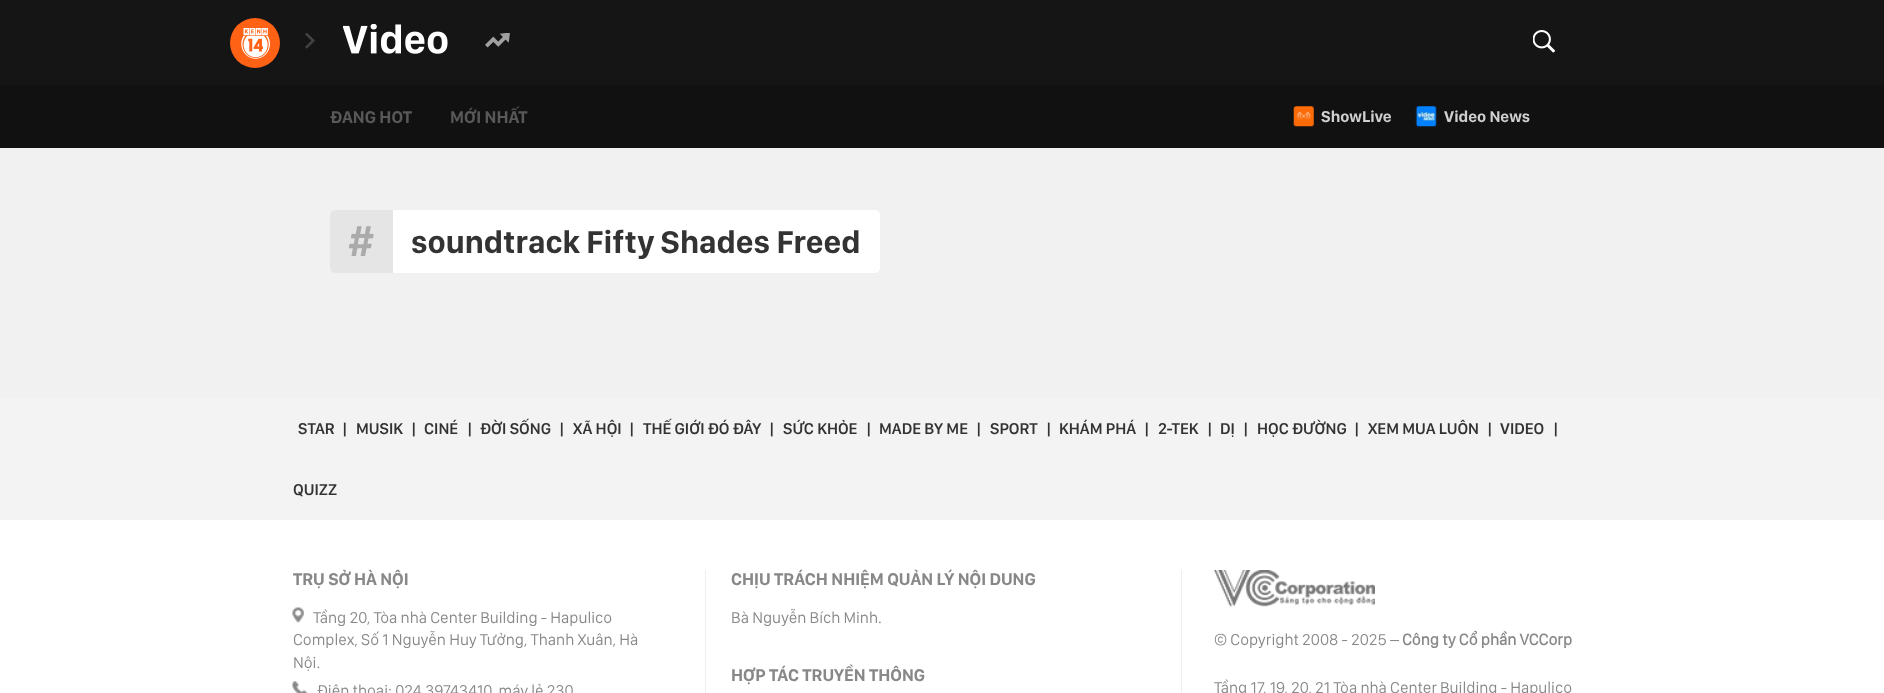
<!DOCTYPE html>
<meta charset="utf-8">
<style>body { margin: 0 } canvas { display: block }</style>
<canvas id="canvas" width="1884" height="693"></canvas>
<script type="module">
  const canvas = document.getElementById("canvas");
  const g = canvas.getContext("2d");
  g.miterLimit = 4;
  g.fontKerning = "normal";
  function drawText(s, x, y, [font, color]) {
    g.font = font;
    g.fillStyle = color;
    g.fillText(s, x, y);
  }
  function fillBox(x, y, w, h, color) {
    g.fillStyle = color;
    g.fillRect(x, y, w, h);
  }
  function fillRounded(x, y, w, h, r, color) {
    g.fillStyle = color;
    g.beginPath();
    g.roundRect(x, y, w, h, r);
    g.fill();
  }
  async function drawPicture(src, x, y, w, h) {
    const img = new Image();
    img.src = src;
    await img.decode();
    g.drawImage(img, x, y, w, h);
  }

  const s1 = ["bold 17.5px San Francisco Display", "#585858"];
  const s2 = ["bold 16.25px San Francisco Display", "#CFCFCF"];
  const s3 = ["bold 32.5px San Francisco Display", "#333333"];
  const s4 = ["600 16.25px San Francisco Display", "#333333"];
  const s5 = ["bold 17.5px San Francisco Display", "#888888"];
  const s6 = ["16.25px San Francisco Display", "#888888"];
  const s7 = ["bold 16.25px 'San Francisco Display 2'", "#888888"];

  fillBox(0, 0, 1884, 693, "#FFFFFF");
  fillBox(0, 0, 1884, 85, "#151515");
  g.fillStyle = "#FF6115";
  g.beginPath();
  g.arc(255, 43, 25, 0, Math.PI * 2);
  g.fill();
  await drawPicture("pic1.png", 241, 28, 29, 31);
  await drawPicture("pic2.png", 305, 33, 10, 16);
  await drawPicture("pic3.png", 343, 24, 105, 30);
  await drawPicture("pic4.png", 485, 33, 25, 15);
  await drawPicture("pic5.png", 1533, 30, 22, 23);
  fillBox(0, 85, 1884, 63, "#111111");
  drawText("ĐANG HOT", 330, 123, s1);
  drawText("MỚI NHẤT", 450, 123, s1);
  await drawPicture("pic6.png", 1293, 106, 21, 21);
  drawText("ShowLive", 1321, 122, s2);
  await drawPicture("pic7.png", 1415, 106, 22, 21);
  drawText("Video News", 1444, 122, s2);
  fillBox(0, 148, 1884, 250, "#F1F1F1");
  fillRounded(330, 210, 550, 63, 5, "#FFFFFF");
  g.fillStyle = "#E5E5E5";
  g.beginPath();
  g.roundRect(330, 210, 63, 63, [5, 0, 0, 5]);
  g.fill();
  await drawPicture("pic8.png", 349, 226, 25, 30);
  drawText("soundtrack Fifty Shades Freed", 411, 253, s3);
  fillBox(0, 398, 1884, 122, "#F3F3F3");
  drawText("|", 411, 434, s4);
  drawText("CINÉ", 424, 434, s4);
  drawText("|", 467, 434, s4);
  drawText("ĐỜI SỐNG", 480, 434, s4);
  drawText("|", 559, 434, s4);
  drawText("XÃ HỘI", 573, 434, s4);
  drawText("|", 629, 434, s4);
  drawText("THẾ GIỚI ĐÓ ĐÂY", 643, 434, s4);
  drawText("|", 769, 434, s4);
  drawText("SỨC KHỎE", 783, 434, s4);
  drawText("|", 1046, 434, s4);
  drawText("KHÁM PHÁ", 1059, 434, s4);
  drawText("|", 1243, 434, s4);
  drawText("HỌC ĐƯỜNG", 1257, 434, s4);
  drawText("|", 1354, 434, s4);
  drawText("XEM MUA LUÔN", 1368, 434, s4);
  drawText("|", 1553, 434, s4);
  drawText("QUIZZ", 293, 495, s4);
  drawText("STAR", 298, 434, s4);
  drawText("|", 342, 434, s4);
  drawText("MUSIK", 356, 434, s4);
  drawText("|", 866, 434, s4);
  drawText("MADE BY ME", 879, 434, s4);
  drawText("|", 976, 434, s4);
  drawText("SPORT", 990, 434, s4);
  drawText("|", 1144, 434, s4);
  drawText("2-TEK", 1158, 434, s4);
  drawText("|", 1207, 434, s4);
  drawText("DỊ", 1220, 434, s4);
  drawText("|", 1487, 434, s4);
  drawText("VIDEO", 1500, 434, s4);
  fillBox(705, 570, 1, 123, "#EEEEEE");
  drawText("TRỤ SỞ HÀ NỘI", 293, 585, s5);
  await drawPicture("pic9.png", 292, 607, 12, 16);
  drawText("Tầng 20, Tòa nhà Center Building - Hapulico", 313, 623, s6);
  drawText("Complex, Số 1 Nguyễn Huy Tưởng, Thanh Xuân, Hà", 293, 645, s6);
  drawText("Nội.", 293, 668, s6);
  await drawPicture("pic10.png", 292, 681, 16, 12);
  drawText("Điện thoại: 024.39743410, máy lẻ 230", 317, 696, s6);
  fillBox(1181, 570, 1, 123, "#EEEEEE");
  drawText("CHỊU TRÁCH NHIỆM QUẢN LÝ NỘI DUNG", 731, 585, s5);
  drawText("Bà Nguyễn Bích Minh.", 731, 623, s6);
  drawText("HỢP TÁC TRUYỀN THÔNG", 731, 681, s5);
  await drawPicture("pic11.png", 1213, 570, 162, 37);
  drawText("© Copyright 2008 - 2025 –", 1214, 645, s6);
  drawText("Công ty Cổ phần VCCorp", 1402, 645, s7);
  drawText("Tầng 17, 19, 20, 21 Tòa nhà Center Building - Hapulico", 1214, 693, s6);
</script>
